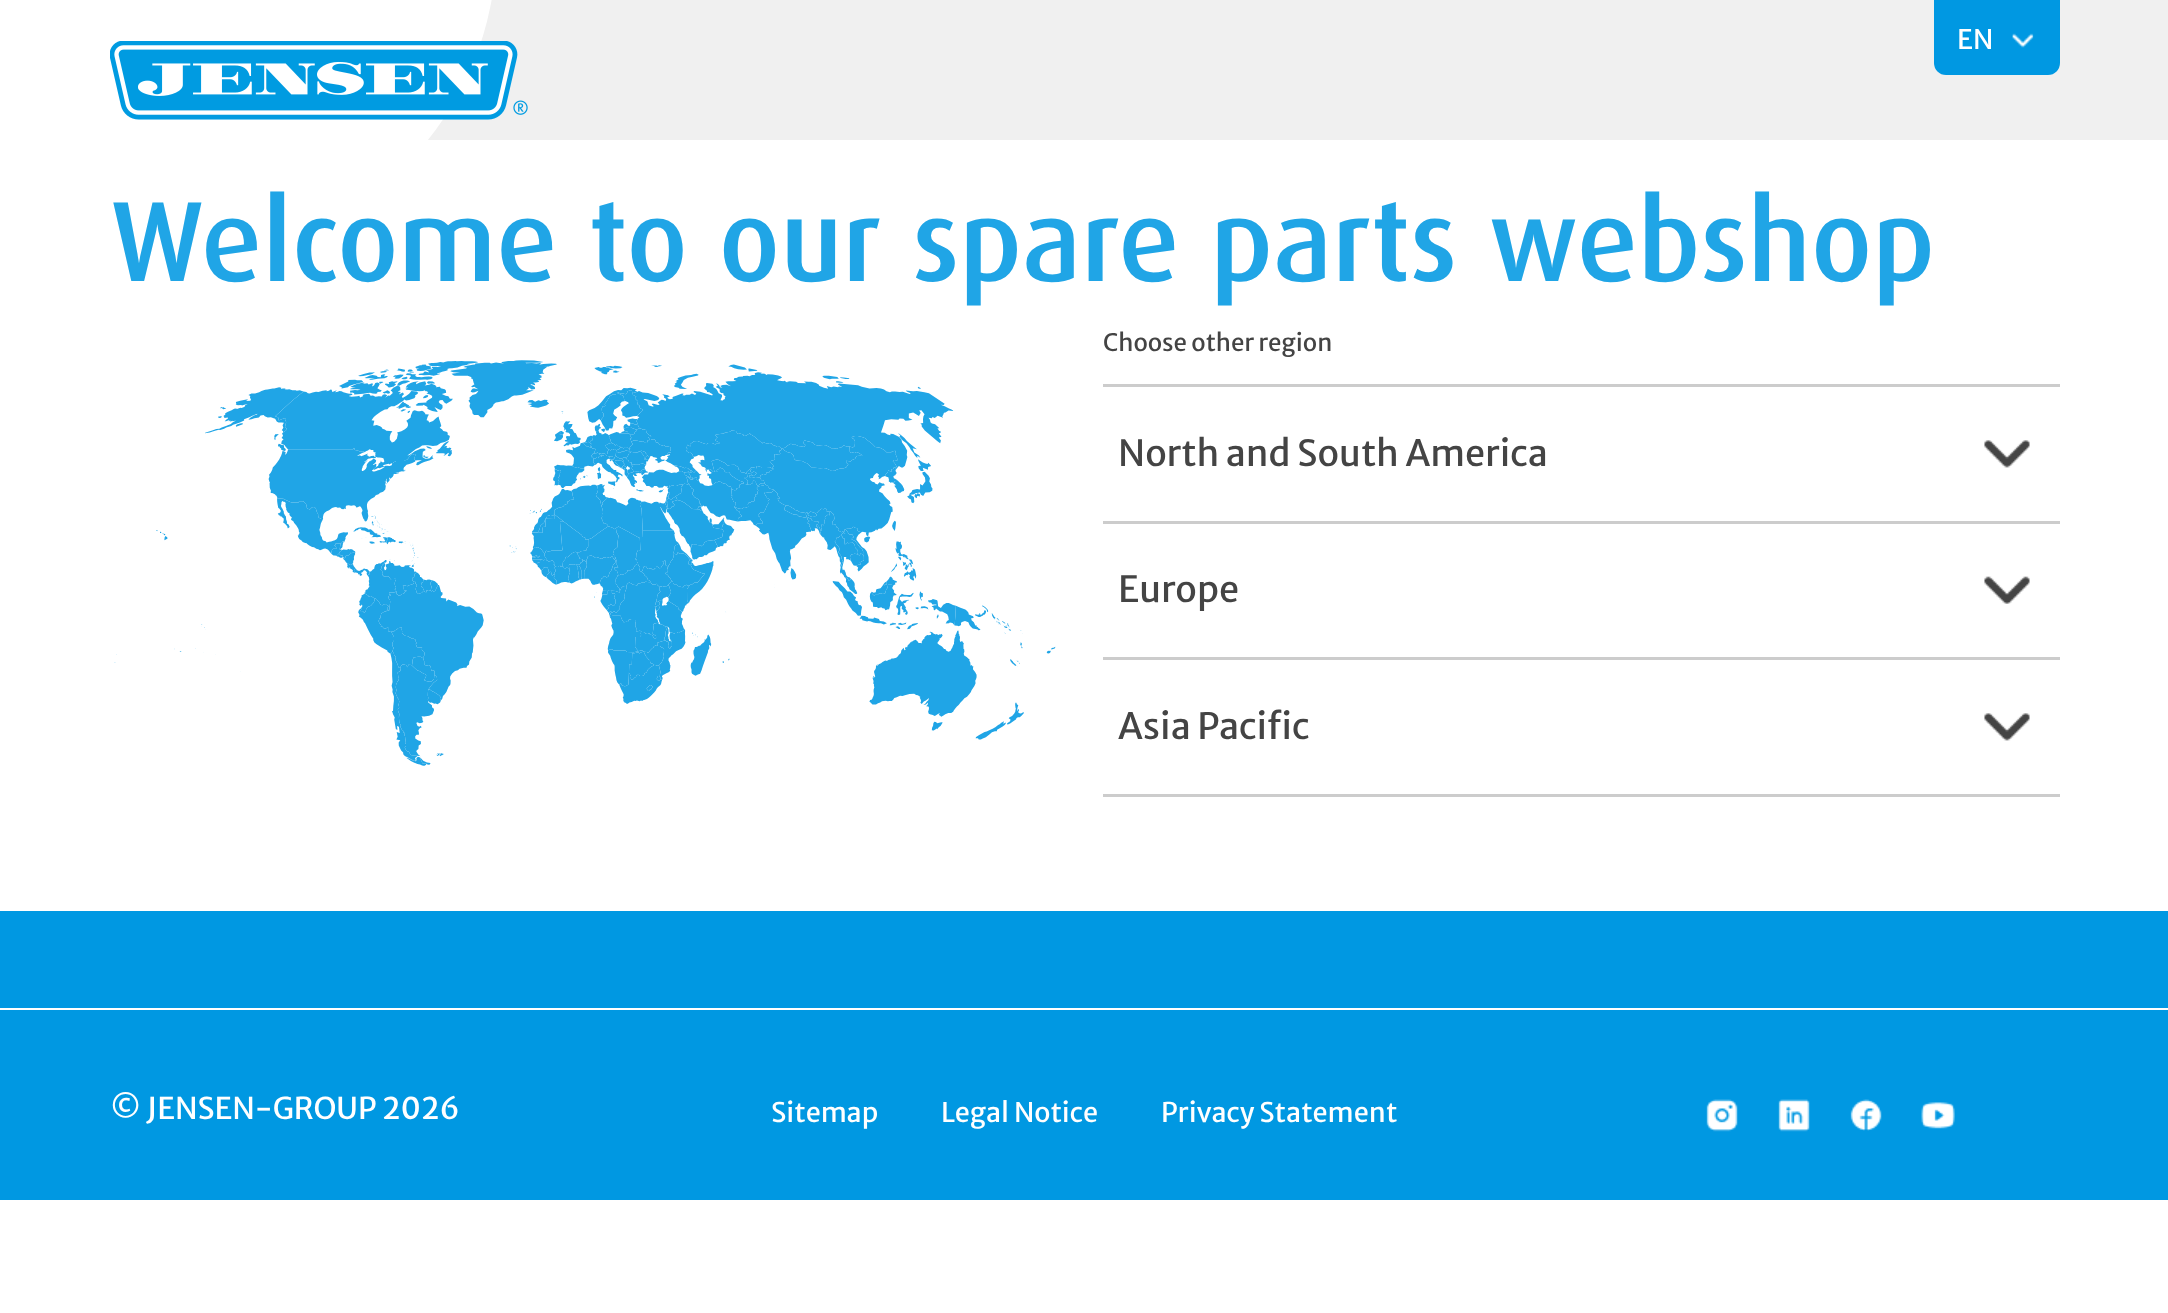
<!DOCTYPE html>
<meta charset="utf-8">
<style>body { margin: 0 } canvas { display: block }</style>
<canvas id="canvas" width="2168" height="1313"></canvas>
<script type="module">
  const canvas = document.getElementById("canvas");
  const g = canvas.getContext("2d");
  g.miterLimit = 4;
  g.fontKerning = "normal";
  function drawText(s, x, y, [font, color]) {
    g.font = font;
    g.fillStyle = color;
    g.fillText(s, x, y);
  }
  function fillBox(x, y, w, h, color) {
    g.fillStyle = color;
    g.fillRect(x, y, w, h);
  }
  async function drawPicture(src, x, y, w, h) {
    const img = new Image();
    img.src = src;
    await img.decode();
    g.drawImage(img, x, y, w, h);
  }

  const s1 = ["27px Merriweather Sans", "#FFFFFF"];
  const s2 = ["500 114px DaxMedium", "#20A5E6"];
  const s3 = ["24px Merriweather Sans", "#444444"];
  const s4 = ["36px Merriweather Sans", "#444444"];
  const s5 = ["30px Merriweather Sans", "#FFFFFF"];

  fillBox(0, 0, 2168, 1313, "#FFFFFF");
  fillBox(427, 0, 1741, 140, "#F0F0F0");
  g.save();
  g.beginPath();
  g.rect(0, 0, 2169, 140);
  g.clip();
  g.fillStyle = "#FFFFFF";
  g.beginPath();
  g.arc(185, -55, 311.5, 0, Math.PI * 2);
  g.fill();
  g.restore();
  g.fillStyle = "#0098E2";
  g.beginPath();
  g.roundRect(1934, 0, 126, 75, [0, 0, 12, 12]);
  g.fill();
  drawText("EN", 1957, 49, s1);
  await drawPicture("pic1.png", 2012, 33, 22, 15);
  await drawPicture("pic2.png", 110, 41, 418, 79);
  drawText("Welcome to our spare parts webshop", 110, 281, s2);
  await drawPicture("pic3.png", 114, 360, 942, 406);
  drawText("Choose other region", 1103, 351, s3);
  fillBox(1103, 384, 957, 3, "#CCCCCC");
  fillBox(1103, 521, 957, 3, "#CCCCCC");
  drawText("North and South America", 1118, 466, s4);
  await drawPicture("pic4.png", 1984, 440, 46, 28);
  fillBox(1103, 657, 957, 3, "#CCCCCC");
  drawText("Europe", 1118, 602, s4);
  await drawPicture("pic5.png", 1984, 576, 46, 28);
  fillBox(1103, 794, 957, 3, "#CCCCCC");
  drawText("Asia Pacific", 1118, 739, s4);
  await drawPicture("pic4.png", 1984, 713, 46, 28);
  fillBox(0, 911, 2168, 289, "#0098E2");
  fillBox(0, 1008, 2168, 2, "#FFFFFF");
  drawText("© JENSEN-GROUP 2026", 110, 1119, s5);
  drawText("Sitemap", 771, 1122, s1);
  drawText("Legal Notice", 941, 1122, s1);
  drawText("Privacy Statement", 1161, 1122, s1);
  await drawPicture("pic6.png", 1706, 1099, 32, 33);
  await drawPicture("pic7.png", 1778, 1099, 32, 33);
  await drawPicture("pic8.png", 1850, 1099, 32, 32);
  await drawPicture("pic9.png", 1921, 1102, 34, 27);
</script>
